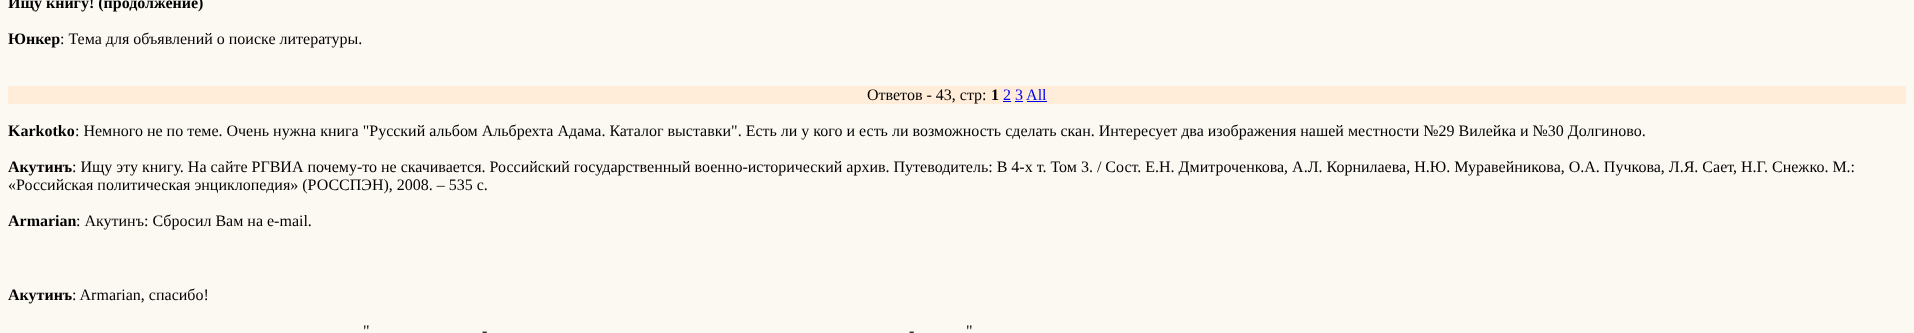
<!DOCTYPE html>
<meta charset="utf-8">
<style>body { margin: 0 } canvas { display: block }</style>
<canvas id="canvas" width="1914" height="333"></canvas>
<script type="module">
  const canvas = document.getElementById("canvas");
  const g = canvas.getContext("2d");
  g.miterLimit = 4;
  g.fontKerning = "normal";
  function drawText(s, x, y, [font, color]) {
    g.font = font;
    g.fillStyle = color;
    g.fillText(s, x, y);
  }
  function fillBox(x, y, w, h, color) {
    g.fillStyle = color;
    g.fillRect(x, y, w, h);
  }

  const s1 = ["bold 16px Liberation Serif", "#000000"];
  const s2 = ["16px Liberation Serif", "#000000"];
  const s3 = ["16px Liberation Serif", "#0000EE"];

  fillBox(0, 0, 1914, 333, "#FCF9F3");
  drawText("Ищу книгу! (продолжение)", 8, 8, s1);
  drawText("Юнкер", 8, 44, s1);
  drawText(": Тема для объявлений о поиске литературы.", 60, 44, s2);
  fillBox(8, 86, 1898, 18, "#FFECD9");
  drawText("Ответов - 43, стр:", 867, 100, s2);
  drawText("1", 991, 100, s1);
  drawText("2 3 All", 1003, 100, s3);
  fillBox(1003, 101, 8, 1, "#0000EE");
  fillBox(1015, 101, 8, 1, "#0000EE");
  fillBox(1027, 101, 20, 1, "#0000EE");
  drawText("Karkotko", 8, 136, s1);
  drawText(": Немного не по теме. Очень нужна книга \"Русский альбом Альбрехта Адама. Каталог выставки\". Есть ли у кого и есть ли возможность сделать скан. Интересует два изображения нашей местности №29 Вилейка и №30 Долгиново.", 75, 136, s2);
  drawText("Акутинъ", 8, 172, s1);
  drawText(": Ищу эту книгу. На сайте РГВИА почему-то не скачивается. Российский государственный военно-исторический архив. Путеводитель: В 4-х т. Том 3. / Сост. Е.Н. Дмитроченкова, А.Л. Корнилаева, Н.Ю. Муравейникова, О.А. Пучкова, Л.Я. Сает, Н.Г. Снежко. М.:", 72, 172, s2);
  drawText("«Российская политическая энциклопедия» (РОССПЭН), 2008. – 535 с.", 8, 190, s2);
  drawText("Armarian", 8, 226, s1);
  drawText(": Акутинъ: Сбросил Вам на e-mail.", 76, 226, s2);
  drawText("Акутинъ", 8, 300, s1);
  drawText(": Armarian, спасибо!", 72, 300, s2);
  drawText("\"", 363, 336, s2);
  drawText("\"", 966, 336, s2);
  drawText("-", 482, 336, s2);
  drawText("-", 909, 336, s2);
</script>
